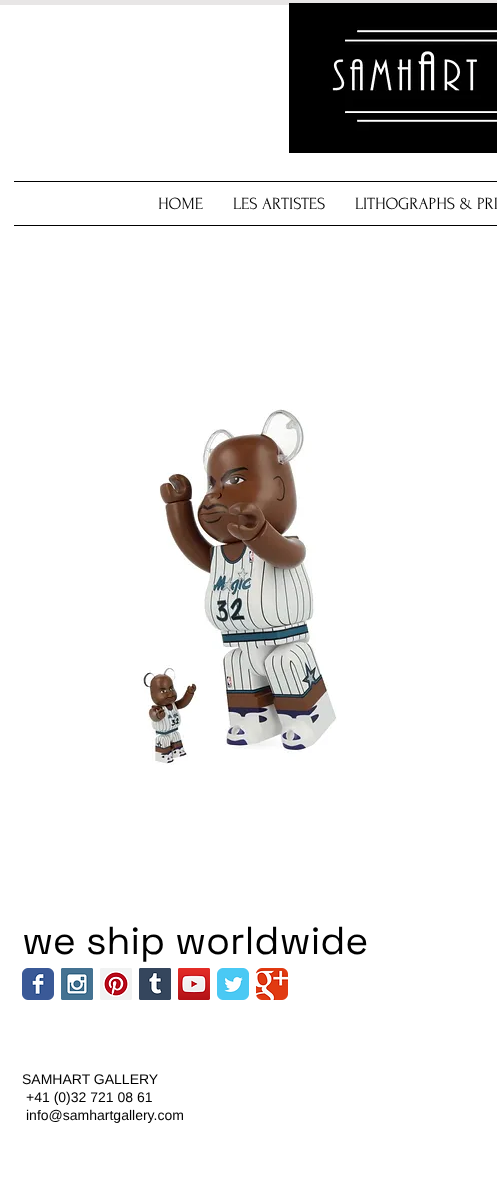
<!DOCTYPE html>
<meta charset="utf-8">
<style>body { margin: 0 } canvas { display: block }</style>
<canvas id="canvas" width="497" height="1181"></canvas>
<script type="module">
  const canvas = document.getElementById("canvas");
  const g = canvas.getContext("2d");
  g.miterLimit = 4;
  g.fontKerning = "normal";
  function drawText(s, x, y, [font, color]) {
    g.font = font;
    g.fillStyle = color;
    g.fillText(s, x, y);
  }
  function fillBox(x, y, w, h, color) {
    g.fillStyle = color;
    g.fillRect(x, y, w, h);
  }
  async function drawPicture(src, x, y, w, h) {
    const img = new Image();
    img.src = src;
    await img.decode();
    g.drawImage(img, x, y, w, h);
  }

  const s1 = ["17px Forum", "#000000"];
  const s2 = ["39px Space Grotesk", "#000000"];
  const s3 = ["14px Liberation Sans", "#000000"];

  fillBox(0, 0, 497, 1181, "#FFFFFF");
  fillBox(0, 0, 497, 5, "#E8E6E6");
  await drawPicture("pic1.png", 289, 3, 208, 150);
  fillBox(14, 181, 483, 1, "#000000");
  fillBox(14, 225, 483, 1, "#000000");
  drawText("HOME", 158, 209, s1);
  drawText("LES ARTISTES", 233, 209, s1);
  drawText("LITHOGRAPHS & PRI", 355, 209, s1);
  await drawPicture("pic2.png", 141, 409, 196, 356);
  drawText("we ship worldwide", 22, 954, s2);
  await drawPicture("pic3.png", 22, 968, 32, 32);
  await drawPicture("pic4.png", 61, 968, 32, 32);
  await drawPicture("pic5.png", 100, 968, 32, 32);
  await drawPicture("pic6.png", 139, 968, 32, 32);
  await drawPicture("pic7.png", 178, 968, 32, 32);
  await drawPicture("pic8.png", 217, 968, 32, 32);
  await drawPicture("pic9.png", 256, 968, 32, 32);
  drawText("SAMHART GALLERY", 22, 1084, s3);
  drawText("+41 (0)32 721 08 61", 26, 1102, s3);
  drawText("info@samhartgallery.com", 26, 1120, s3);
</script>
